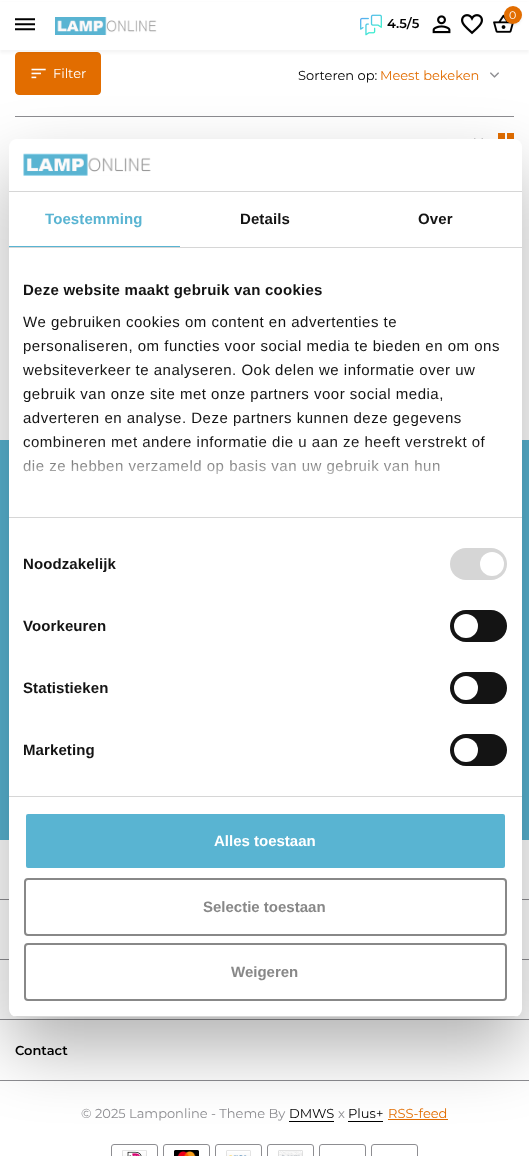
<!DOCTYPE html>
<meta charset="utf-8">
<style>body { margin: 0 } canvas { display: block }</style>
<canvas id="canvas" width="529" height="1156"></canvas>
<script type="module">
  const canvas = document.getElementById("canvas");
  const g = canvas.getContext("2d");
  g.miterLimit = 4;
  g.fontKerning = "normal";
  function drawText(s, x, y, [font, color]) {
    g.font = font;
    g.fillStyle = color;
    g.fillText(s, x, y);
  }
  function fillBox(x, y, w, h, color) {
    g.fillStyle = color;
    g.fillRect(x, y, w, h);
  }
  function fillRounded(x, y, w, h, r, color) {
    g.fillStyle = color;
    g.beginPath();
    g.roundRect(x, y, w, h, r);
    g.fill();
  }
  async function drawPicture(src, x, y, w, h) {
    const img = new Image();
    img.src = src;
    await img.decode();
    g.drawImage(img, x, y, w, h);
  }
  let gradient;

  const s1 = ["11px Montserrat", "#FFFFFF"];
  const s2 = ["600 13px Montserrat", "#000000"];
  const s3 = ["13px Montserrat", "#FFFFFF"];
  const s4 = ["13px Montserrat", "#000000"];
  const s5 = ["13px Montserrat", "#E26D00"];
  const s6 = ["bold 15px Liberation Sans", "#59B4D2"];
  const s7 = ["bold 15px Liberation Sans", "#141414"];
  const s8 = ["15px Liberation Sans", "#141414"];
  const s9 = ["bold 15px Liberation Sans", "#FFFFFF"];
  const s10 = ["bold 15px Liberation Sans", "#888888"];
  const s11 = ["13px Montserrat", "#8D8D91"];

  fillBox(0, 0, 529, 1156, "#FFFFFF");
  g.fillStyle = "#E26D00";
  g.beginPath();
  g.roundRect(15.5, 52.5, 85, 42, 3.5);
  g.fill();
  g.strokeStyle = "#E26D00";
  g.stroke();
  g.fillStyle = "rgba(0, 0, 0, 0.04)";
  g.filter = "blur(1.5px)";
  g.beginPath();
  g.rect(0, 3, 529, 50);
  g.fill();
  g.filter = "none";
  fillBox(0, 2, 529, 48, "#FFFFFF");
  await drawPicture("pic1.png", 432, 15, 19, 19);
  await drawPicture("pic2.png", 461, 14, 22, 21);
  await drawPicture("pic3.png", 493, 14, 21, 19);
  g.fillStyle = "rgba(0, 0, 0, 0.06)";
  g.filter = "blur(1px)";
  g.beginPath();
  g.roundRect(504, 8, 18, 18, 9);
  g.fill();
  g.filter = "none";
  g.fillStyle = "#E26D00";
  g.beginPath();
  g.arc(513, 15, 9, 0, Math.PI * 2);
  g.fill();
  drawText("0", 509, 19, s1);
  await drawPicture("pic4.png", 15, 18, 20, 13);
  await drawPicture("pic5.png", 55, 17, 102, 18);
  await drawPicture("pic6.png", 360, 14, 22, 22);
  drawText("4.5/5", 387, 28, s2);
  await drawPicture("pic7.png", 31, 68, 15, 11);
  drawText("Filter", 53, 78, s3);
  drawText("Sorteren op:", 298, 80, s4);
  drawText("Meest bekeken", 380, 80, s5);
  await drawPicture("pic8.png", 490, 72, 9, 6);
  await drawPicture("pic9.png", 474, 138, 9, 1);
  await drawPicture("pic10.png", 498, 133, 16, 6);
  fillBox(15, 116, 499, 1, "#8D8D91");
  fillBox(0, 440, 529, 400, "#59B4D2");
  fillBox(0, 899, 529, 1, "#8D8D91");
  fillBox(0, 959, 529, 1, "#8D8D91");
  fillBox(0, 1019, 529, 1, "#8D8D91");
  fillBox(0, 1080, 529, 1, "#8D8D91");
  fillBox(289, 1121, 45, 1, "#000000");
  fillBox(348, 1121, 35, 1, "#000000");
  fillBox(388, 1119, 60, 1, "#E26D00");
  g.beginPath();
  g.roundRect(111.5, 1144.5, 46, 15, 2.5);
  g.strokeStyle = "#8D8D91";
  g.stroke();
  await drawPicture("pic12.png", 122, 1150, 25, 6);
  g.beginPath();
  g.roundRect(163.5, 1144.5, 46, 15, 2.5);
  g.stroke();
  await drawPicture("pic13.png", 174, 1150, 25, 6);
  g.beginPath();
  g.roundRect(215.5, 1144.5, 46, 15, 2.5);
  g.stroke();
  await drawPicture("pic14.png", 226, 1150, 25, 6);
  g.beginPath();
  g.roundRect(267.5, 1144.5, 46, 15, 2.5);
  g.stroke();
  await drawPicture("pic15.png", 278, 1150, 25, 6);
  g.beginPath();
  g.roundRect(319.5, 1144.5, 46, 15, 2.5);
  g.stroke();
  g.beginPath();
  g.roundRect(371.5, 1144.5, 46, 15, 2.5);
  g.stroke();
  g.fillStyle = "rgba(0, 0, 0, 0.3)";
  g.filter = "blur(34px)";
  g.beginPath();
  g.roundRect(9, 171, 513, 878, 8);
  g.fill();
  g.filter = "none";
  fillRounded(9, 139, 513, 878, 8, "#FFFFFF");
  fillBox(9, 191, 513, 1, "#D6D6D6");
  await drawPicture("pic11.png", 23, 153, 128, 23);
  fillBox(9, 247, 513, 1, "#D6D6D6");
  fillBox(9, 246, 171, 1, "#59B4D2");
  g.letterSpacing = "0.1px";
  drawText("Toestemming", 45, 224, s6);
  drawText("Details", 240, 224, s7);
  drawText("Over", 418, 224, s7);
  fillBox(9, 517, 513, 1, "#D6D6D6");
  g.letterSpacing = "0.25px";
  drawText("Deze website maakt gebruik van cookies", 23, 295, s7);
  g.letterSpacing = "0.5px";
  drawText("We gebruiken cookies om content en advertenties te", 23, 327, s8);
  drawText("personaliseren, om functies voor social media te bieden en om ons", 23, 351, s8);
  drawText("websiteverkeer te analyseren. Ook delen we informatie over uw", 23, 375, s8);
  drawText("gebruik van onze site met onze partners voor social media,", 23, 399, s8);
  drawText("adverteren en analyse. Deze partners kunnen deze gegevens", 23, 423, s8);
  drawText("combineren met andere informatie die u aan ze heeft verstrekt of", 23, 447, s8);
  drawText("die ze hebben verzameld op basis van uw gebruik van hun", 23, 471, s8);
  gradient = g.createLinearGradient(259, 517, 259, 442);
  gradient.addColorStop(0, "#FFFFFF");
  gradient.addColorStop(0.5, "rgba(255, 255, 255, 0.8)");
  gradient.addColorStop(1, "rgba(255, 255, 255, 0)");
  g.fillStyle = gradient;
  g.fillRect(23, 443, 461, 32);
  fillBox(9, 796, 513, 1, "#D6D6D6");
  g.letterSpacing = "0.1px";
  drawText("Noodzakelijk", 23, 569, s7);
  fillRounded(450, 548, 57, 32, 16, "#D6D6D6");
  g.fillStyle = "#FFFFFF";
  g.beginPath();
  g.arc(492, 564, 12, 0, Math.PI * 2);
  g.fill();
  drawText("Voorkeuren", 23, 631, s7);
  fillRounded(450, 610, 57, 32, 16, "#141414");
  g.fillStyle = "#FFFFFF";
  g.beginPath();
  g.arc(466, 626, 12, 0, Math.PI * 2);
  g.fill();
  drawText("Statistieken", 23, 693, s7);
  fillRounded(450, 672, 57, 32, 16, "#141414");
  g.fillStyle = "#FFFFFF";
  g.beginPath();
  g.arc(466, 688, 12, 0, Math.PI * 2);
  g.fill();
  drawText("Marketing", 23, 755, s7);
  fillRounded(450, 734, 57, 32, 16, "#141414");
  g.fillStyle = "#FFFFFF";
  g.beginPath();
  g.arc(466, 750, 12, 0, Math.PI * 2);
  g.fill();
  g.save();
  g.beginPath();
  g.roundRect(9, 139, 513, 878, 8);
  g.clip();
  fillBox(9, 1016, 513, 1, "#D6D6D6");
  g.restore();
  g.fillStyle = "#59B4D2";
  g.beginPath();
  g.roundRect(25, 813, 481, 56, 3);
  g.fill();
  g.strokeStyle = "#FFFFFF";
  g.lineWidth = 2;
  g.stroke();
  g.letterSpacing = "0px";
  drawText("Alles toestaan", 214, 846, s9);
  g.beginPath();
  g.roundRect(25, 879, 481, 56, 3);
  g.strokeStyle = "#888888";
  g.stroke();
  drawText("Selectie toestaan", 203, 912, s10);
  g.beginPath();
  g.roundRect(25, 944, 481, 56, 3);
  g.stroke();
  drawText("Weigeren", 231, 977, s10);
  drawText("Contact", 15, 1055, s2);
  drawText("© 2025 Lamponline - Theme By", 81, 1118, s11);
  drawText("DMWS", 289, 1118, s4);
  drawText("x", 338, 1118, s11);
  drawText("Plus+", 348, 1118, s4);
  drawText("RSS-feed", 388, 1118, s5);
</script>
